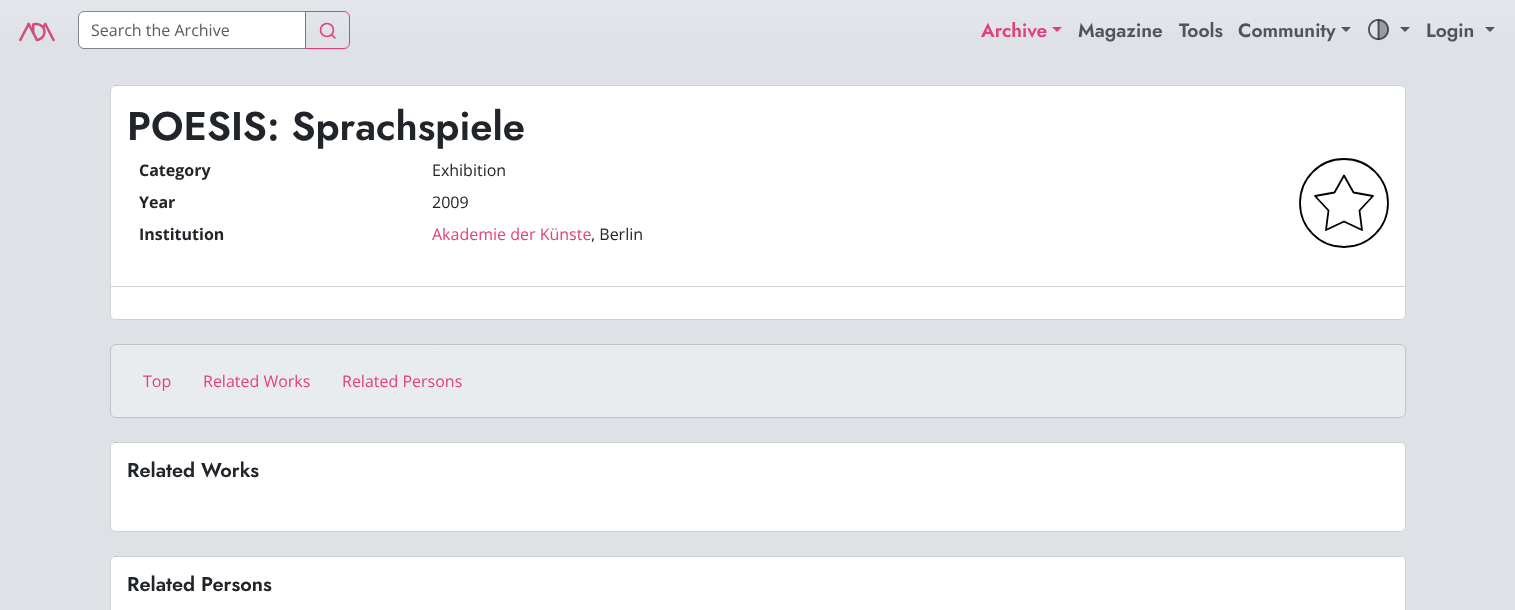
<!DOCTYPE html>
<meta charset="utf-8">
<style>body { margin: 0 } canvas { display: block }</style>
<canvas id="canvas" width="1515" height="610"></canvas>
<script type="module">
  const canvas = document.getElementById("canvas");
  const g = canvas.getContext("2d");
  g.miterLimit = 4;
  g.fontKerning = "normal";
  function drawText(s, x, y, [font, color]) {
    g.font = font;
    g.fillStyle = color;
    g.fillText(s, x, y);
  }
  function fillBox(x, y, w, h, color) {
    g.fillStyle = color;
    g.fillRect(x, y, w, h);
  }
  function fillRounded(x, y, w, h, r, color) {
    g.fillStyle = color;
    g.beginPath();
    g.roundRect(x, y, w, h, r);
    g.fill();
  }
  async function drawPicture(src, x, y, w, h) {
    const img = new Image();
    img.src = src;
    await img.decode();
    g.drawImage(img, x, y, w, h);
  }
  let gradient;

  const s1 = ["16px Open Sans", "#595C5F"];
  const s2 = ["600 19.25px Jost", "#E2407B"];
  const s3 = ["600 19.25px Jost", "#515559"];
  const s4 = ["600 40px Jost", "#212529"];
  const s5 = ["bold 16px Open Sans", "#212529"];
  const s6 = ["16px Open Sans", "#212529"];
  const s7 = ["16px Open Sans", "#E2407B"];
  const s8 = ["600 20px Jost", "#212529"];

  fillBox(0, 0, 1515, 610, "#DEE2E6");
  gradient = g.createLinearGradient(758, 0, 758, 61);
  gradient.addColorStop(0, "#E3E6EA");
  gradient.addColorStop(1, "#DEE2E6");
  g.fillStyle = gradient;
  g.fillRect(0, 0, 1515, 31);
  await drawPicture("pic1.png", 19, 22, 36, 20);
  g.fillStyle = "#FFFFFF";
  g.beginPath();
  g.roundRect(79, 12, 226, 36, [5, 0, 0, 5]);
  g.fill();
  g.beginPath();
  g.roundRect(78.5, 11.5, 227, 37, [5.5, 0, 0, 5.5]);
  g.strokeStyle = "rgba(33, 37, 41, 0.5)";
  g.stroke();
  drawText("Search the Archive", 91, 36, s1);
  g.save();
  g.beginPath();
  g.moveTo(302, 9);
  g.lineTo(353, 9);
  g.lineTo(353, 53);
  g.lineTo(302, 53);
  g.closePath();
  g.moveTo(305, 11);
  g.lineTo(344, 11);
  g.bezierCurveTo(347.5, 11, 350, 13.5, 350, 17);
  g.lineTo(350, 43);
  g.bezierCurveTo(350, 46.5, 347.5, 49, 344, 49);
  g.lineTo(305, 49);
  g.closePath();
  g.clip("evenodd");
  g.fillStyle = "rgba(0, 0, 0, 0.07)";
  g.filter = "blur(0.5px)";
  g.beginPath();
  g.roundRect(305, 12, 45, 38, 6);
  g.fill();
  g.filter = "none";
  g.restore();
  g.fillStyle = "#E6E9EC";
  g.beginPath();
  g.moveTo(306, 13);
  g.lineTo(344, 13);
  g.bezierCurveTo(347, 13, 349, 15, 349, 18);
  g.lineTo(349, 17);
  g.bezierCurveTo(349, 14, 347, 12, 344, 12);
  g.lineTo(306, 12);
  g.closePath();
  g.fill();
  g.beginPath();
  g.roundRect(305.5, 11.5, 44, 37, [0, 5.5, 5.5, 0]);
  g.strokeStyle = "#E2407B";
  g.stroke();
  g.beginPath();
  g.arc(327, 30, 6.5, 0, Math.PI * 2);
  g.lineWidth = 1.6;
  g.stroke();
  g.beginPath();
  g.moveTo(335, 38);
  g.lineTo(331.5, 34.5);
  g.lineCap = "round";
  g.lineJoin = "round";
  g.stroke();
  drawText("Archive", 981, 37, s2);
  g.beginPath();
  g.moveTo(1052, 27);
  g.lineTo(1062, 27);
  g.lineTo(1057, 32);
  g.closePath();
  g.fill();
  drawText("Magazine", 1078, 37, s3);
  drawText("Tools", 1179, 37, s3);
  drawText("Community", 1238, 37, s3);
  g.beginPath();
  g.moveTo(1341, 27);
  g.lineTo(1351, 27);
  g.lineTo(1346, 32);
  g.closePath();
  g.fill();
  await drawPicture("pic2.png", 1368, 19, 22, 22);
  g.beginPath();
  g.moveTo(1400, 27);
  g.lineTo(1410, 27);
  g.lineTo(1405, 32);
  g.closePath();
  g.fill();
  drawText("Login", 1426, 37, s3);
  g.beginPath();
  g.moveTo(1485, 27);
  g.lineTo(1495, 27);
  g.lineTo(1490, 32);
  g.closePath();
  g.fill();
  fillRounded(110, 85, 1296, 235, 6, "#FFFFFF");
  g.beginPath();
  g.roundRect(110.5, 85.5, 1295, 234, 5.5);
  g.strokeStyle = "rgba(0, 0, 0, 0.18)";
  g.lineWidth = 1;
  g.lineJoin = "miter";
  g.stroke();
  drawText("POESIS: Sprachspiele", 127, 140, s4);
  drawText("Category", 139, 176, s5);
  drawText("Exhibition", 432, 176, s6);
  drawText("Year", 139, 208, s5);
  drawText("2009", 432, 208, s6);
  drawText("Institution", 139, 240, s5);
  drawText("Akademie der Künste", 432, 240, s7);
  drawText(", Berlin", 591, 240, s6);
  g.beginPath();
  g.moveTo(1344, 159);
  g.bezierCurveTo(1319.5, 159, 1300, 178.5, 1300, 203);
  g.bezierCurveTo(1300, 227.5, 1319.5, 247, 1344, 247);
  g.bezierCurveTo(1368.5, 247, 1388, 227.5, 1388, 203);
  g.bezierCurveTo(1388, 178.5, 1368.5, 159, 1344, 159);
  g.closePath();
  g.moveTo(1362, 230);
  g.lineTo(1344, 221.5);
  g.lineTo(1326, 230);
  g.lineTo(1328.5, 210.5);
  g.lineTo(1315, 196);
  g.lineTo(1334.5, 192.5);
  g.lineTo(1344, 175.5);
  g.lineTo(1353.5, 192.5);
  g.lineTo(1373, 196);
  g.lineTo(1359.5, 210.5);
  g.closePath();
  g.strokeStyle = "#000000";
  g.lineWidth = 1.8;
  g.lineJoin = "round";
  g.stroke();
  g.fillStyle = "#FFFFFF";
  g.beginPath();
  g.roundRect(111, 286, 1294, 33, [0, 0, 5, 5]);
  g.fill();
  fillBox(111, 286, 1294, 1, "#D2D2D2");
  g.fillStyle = "#E9ECEF";
  g.beginPath();
  g.roundRect(110.5, 344.5, 1295, 73, 5.5);
  g.fill();
  g.strokeStyle = "#C0C2C5";
  g.lineWidth = 1;
  g.lineJoin = "miter";
  g.stroke();
  drawText("Top", 143, 387, s7);
  drawText("Related Works", 203, 387, s7);
  drawText("Related Persons", 342, 387, s7);
  fillRounded(110, 442, 1296, 90, 6, "#FFFFFF");
  g.beginPath();
  g.roundRect(110.5, 442.5, 1295, 89, 5.5);
  g.strokeStyle = "rgba(0, 0, 0, 0.18)";
  g.stroke();
  g.beginPath();
  g.roundRect(111, 443, 1294, 56, [5, 5, 0, 0]);
  g.fill();
  drawText("Related Works", 127, 477, s8);
  fillRounded(110, 556, 1296, 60, 6, "#FFFFFF");
  g.beginPath();
  g.roundRect(110.5, 556.5, 1295, 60, 5.5);
  g.stroke();
  g.beginPath();
  g.moveTo(116, 557);
  g.lineTo(1400, 557);
  g.bezierCurveTo(1403, 557, 1405, 559, 1405, 562);
  g.lineTo(1405, 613);
  g.lineTo(111, 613);
  g.lineTo(111, 562);
  g.bezierCurveTo(111, 559, 113, 557, 116, 557);
  g.closePath();
  g.fill();
  drawText("Related Persons", 127, 591, s8);
</script>
